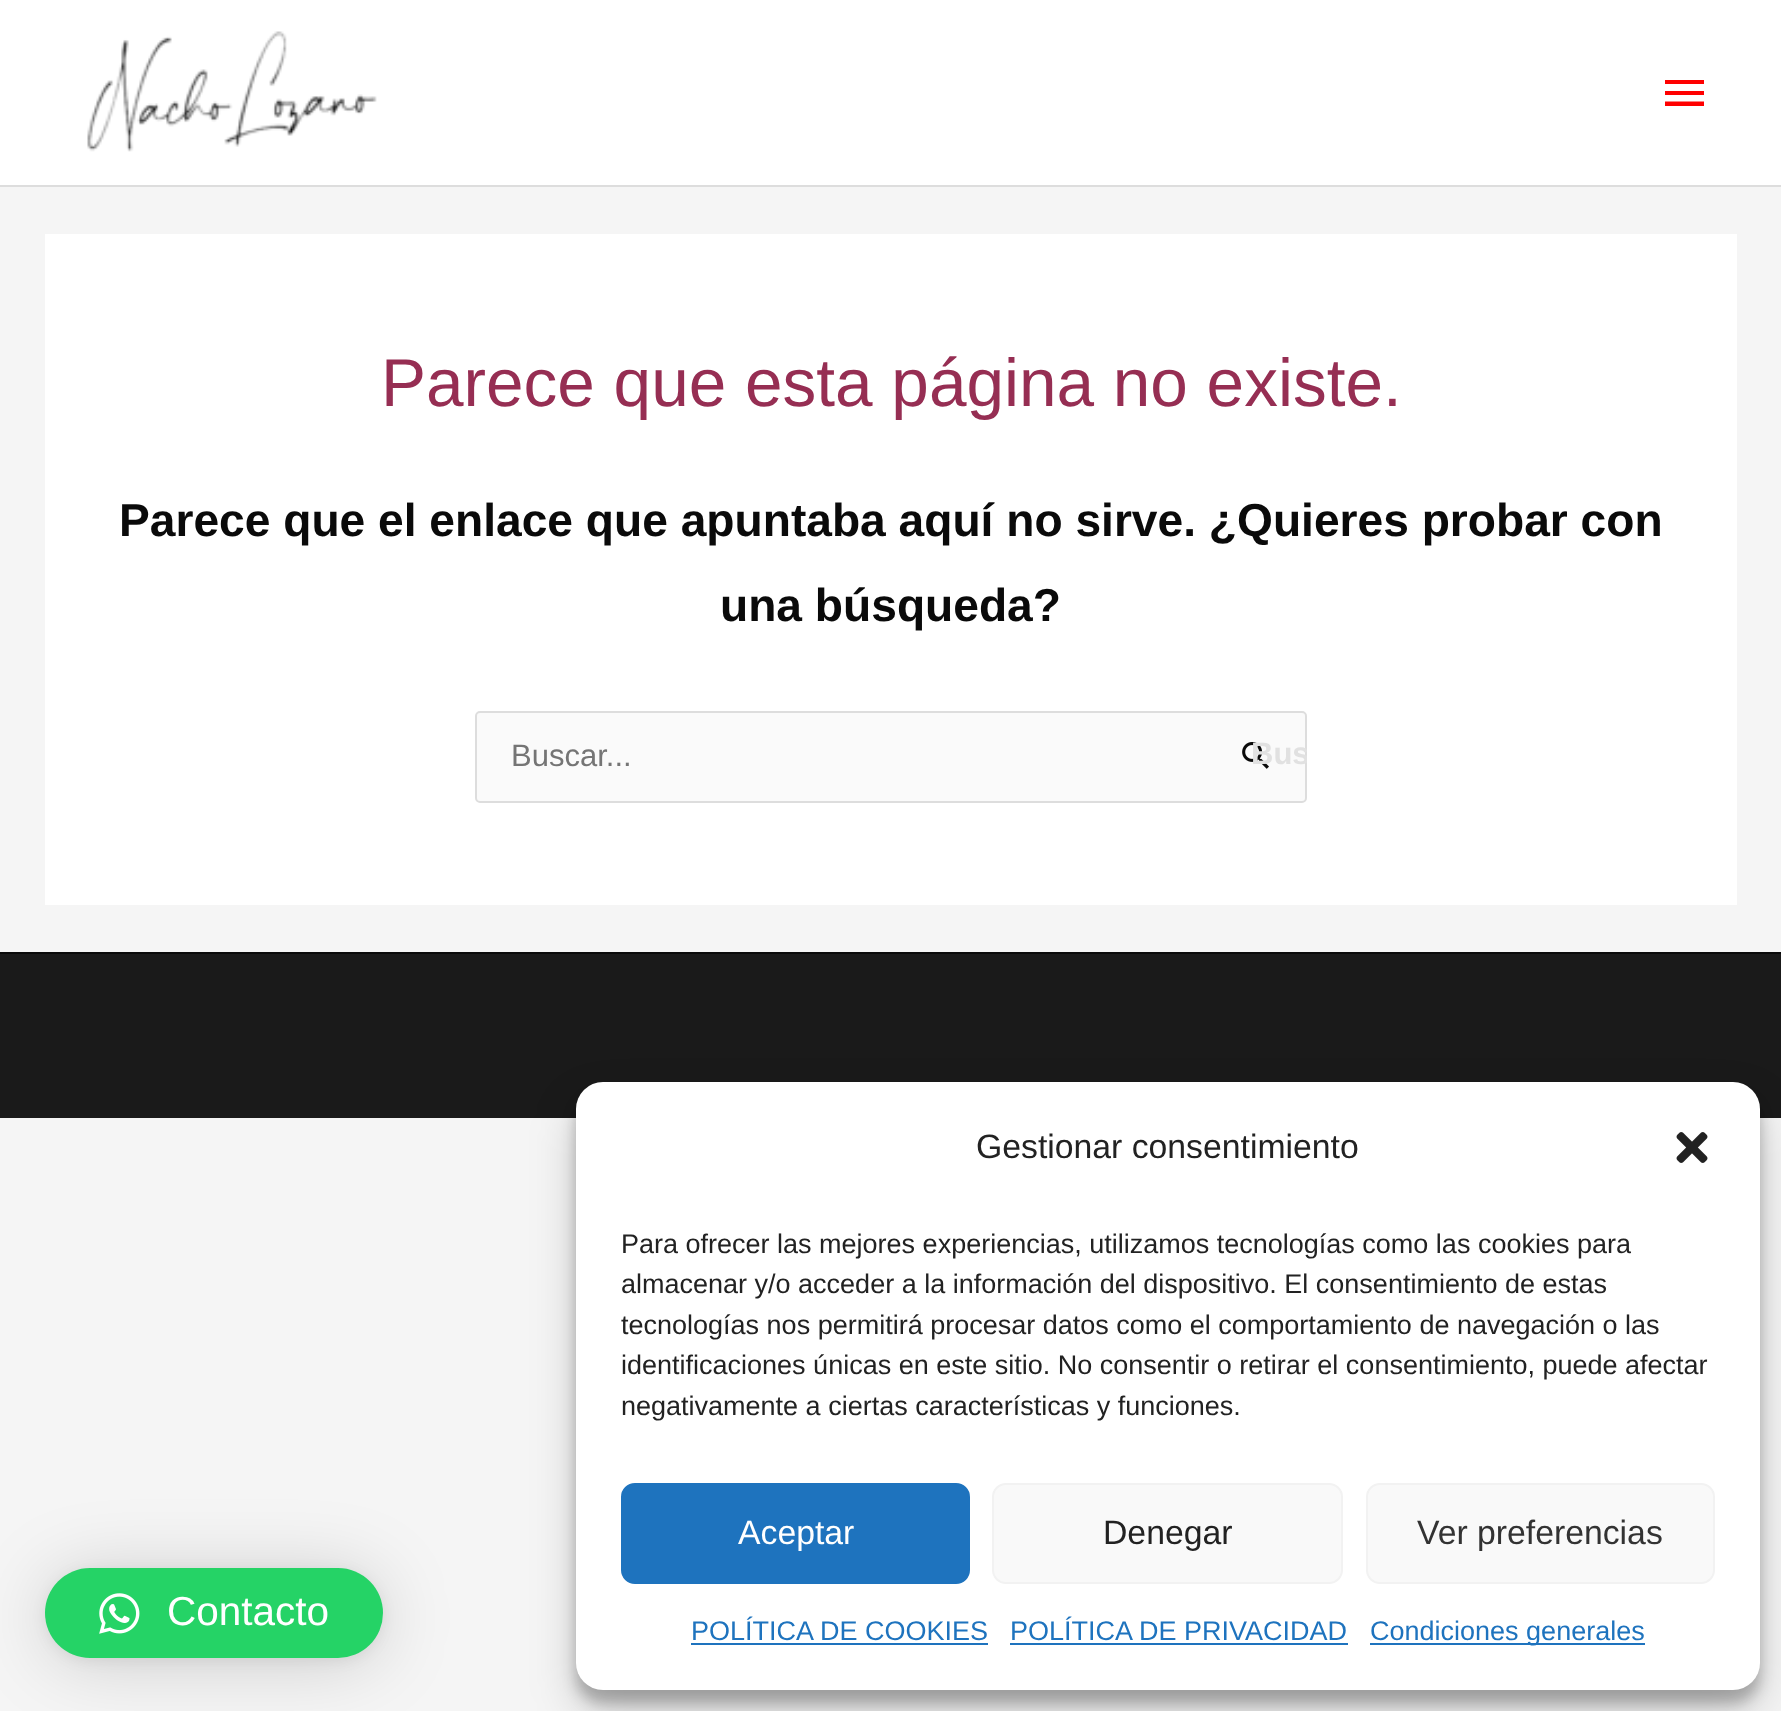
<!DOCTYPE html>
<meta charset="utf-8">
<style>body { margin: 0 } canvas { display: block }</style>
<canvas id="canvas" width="1781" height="1711"></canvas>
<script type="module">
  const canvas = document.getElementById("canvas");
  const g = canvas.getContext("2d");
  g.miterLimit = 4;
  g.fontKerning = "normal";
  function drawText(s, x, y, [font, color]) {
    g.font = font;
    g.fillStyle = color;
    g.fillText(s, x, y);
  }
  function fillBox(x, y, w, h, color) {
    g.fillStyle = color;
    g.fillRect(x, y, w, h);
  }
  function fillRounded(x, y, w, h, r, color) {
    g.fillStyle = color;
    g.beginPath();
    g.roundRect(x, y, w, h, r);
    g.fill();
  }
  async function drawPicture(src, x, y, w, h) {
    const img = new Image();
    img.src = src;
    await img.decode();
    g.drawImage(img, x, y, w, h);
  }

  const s1 = ["67.5px Liberation Sans", "#962E53"];
  const s2 = ["bold 46.15px Liberation Sans", "#0A0A0A"];
  const s3 = ["31px Liberation Sans", "#757575"];
  const s4 = ["bold 31px Liberation Sans", "#E1E1E1"];
  const s5 = ["40.5px Liberation Sans", "#FFFFFF"];
  const s6 = ["33.75px Liberation Sans", "#222222"];
  const s7 = ["27px Liberation Sans", "#222222"];
  const s8 = ["33.75px Liberation Sans", "#FFFFFF"];
  const s9 = ["33.75px Liberation Sans", "#333333"];
  const s10 = ["27px Liberation Sans", "#1E73BE"];

  fillBox(0, 0, 1781, 1711, "#F5F5F5");
  fillBox(0, 0, 1781, 185, "#FFFFFF");
  fillBox(0, 185, 1781, 2, "#DDDDDD");
  await drawPicture("pic1.png", 87, 31, 290, 121);
  g.fillStyle = "#FF0000";
  g.beginPath();
  g.moveTo(1665, 80);
  g.lineTo(1704, 80);
  g.lineTo(1704, 84);
  g.lineTo(1665, 84);
  g.closePath();
  g.moveTo(1665, 95);
  g.lineTo(1665, 91);
  g.lineTo(1704, 91);
  g.lineTo(1704, 95);
  g.closePath();
  g.moveTo(1665, 106);
  g.lineTo(1665, 101.5);
  g.lineTo(1704, 101.5);
  g.lineTo(1704, 106);
  g.closePath();
  g.fill();
  fillBox(45, 234, 1692, 671, "#FFFFFF");
  drawText("Parece que esta página no existe.", 381, 406, s1);
  drawText("Parece que el enlace que apuntaba aquí no sirve. ¿Quieres probar con", 119, 536, s2);
  drawText("una búsqueda?", 720, 621, s2);
  g.fillStyle = "#FAFAFA";
  g.beginPath();
  g.roundRect(476, 712, 830, 90, 4);
  g.fill();
  g.strokeStyle = "#DDDDDD";
  g.lineWidth = 2;
  g.stroke();
  await drawPicture("pic2.png", 1242, 742, 27, 27);
  drawText("Buscar...", 511, 766, s3);
  g.save();
  g.beginPath();
  g.roundRect(1206, 711, 101, 88, 5);
  g.clip();
  drawText("Bus", 1251, 764, s4);
  g.restore();
  fillBox(0, 952, 1781, 2, "#0A0A0A");
  fillBox(0, 954, 1781, 164, "#1A1A1A");
  g.fillStyle = "rgba(0, 0, 0, 0.16)";
  g.filter = "blur(36px)";
  g.beginPath();
  g.roundRect(45, 1573, 338, 90, 45);
  g.fill();
  g.filter = "none";
  g.fillStyle = "rgba(0, 0, 0, 0.06)";
  g.filter = "blur(7px)";
  g.beginPath();
  g.roundRect(45, 1571, 338, 90, 45);
  g.fill();
  g.filter = "none";
  fillRounded(45, 1568, 338, 90, 45, "#25D366");
  await drawPicture("pic3.png", 99, 1593, 41, 41);
  drawText("Contacto", 167, 1625, s5);
  g.fillStyle = "rgba(0, 0, 0, 0.23)";
  g.filter = "blur(7px)";
  g.beginPath();
  g.roundRect(576, 1096, 1184, 607, 27);
  g.fill();
  g.filter = "none";
  g.fillStyle = "rgba(0, 0, 0, 0.19)";
  g.filter = "blur(22.5px)";
  g.beginPath();
  g.roundRect(576, 1105, 1184, 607, 27);
  g.fill();
  g.filter = "none";
  fillRounded(576, 1082, 1184, 608, 27, "#FFFFFF");
  drawText("Gestionar consentimiento", 976, 1158, s6);
  await drawPicture("pic4.png", 1676, 1132, 32, 31);
  drawText("Para ofrecer las mejores experiencias, utilizamos tecnologías como las cookies para", 621, 1253, s7);
  drawText("almacenar y/o acceder a la información del dispositivo. El consentimiento de estas", 621, 1293, s7);
  drawText("tecnologías nos permitirá procesar datos como el comportamiento de navegación o las", 621, 1334, s7);
  drawText("identificaciones únicas en este sitio. No consentir o retirar el consentimiento, puede afectar", 621, 1374, s7);
  drawText("negativamente a ciertas características y funciones.", 621, 1415, s7);
  g.fillStyle = "#1E73BE";
  g.beginPath();
  g.roundRect(622, 1484, 347, 99, 13);
  g.fill();
  g.strokeStyle = "#1E73BE";
  g.stroke();
  drawText("Aceptar", 738, 1544, s8);
  g.fillStyle = "#F9F9F9";
  g.beginPath();
  g.roundRect(993, 1484, 349, 99, 13);
  g.fill();
  g.strokeStyle = "#F2F2F2";
  g.stroke();
  drawText("Denegar", 1103, 1544, s6);
  g.fillStyle = "#F9F9F9";
  g.beginPath();
  g.roundRect(1367, 1484, 347, 99, 13);
  g.fill();
  g.stroke();
  drawText("Ver preferencias", 1417, 1544, s9);
  drawText("POLÍTICA DE COOKIES", 691, 1640, s10);
  fillBox(691, 1643, 297, 2, "#1E73BE");
  drawText("POLÍTICA DE PRIVACIDAD", 1010, 1640, s10);
  fillBox(1010, 1643, 338, 2, "#1E73BE");
  fillBox(1370, 1643, 275, 2, "#1E73BE");
  drawText("Condiciones generales", 1370, 1640, s10);
</script>
